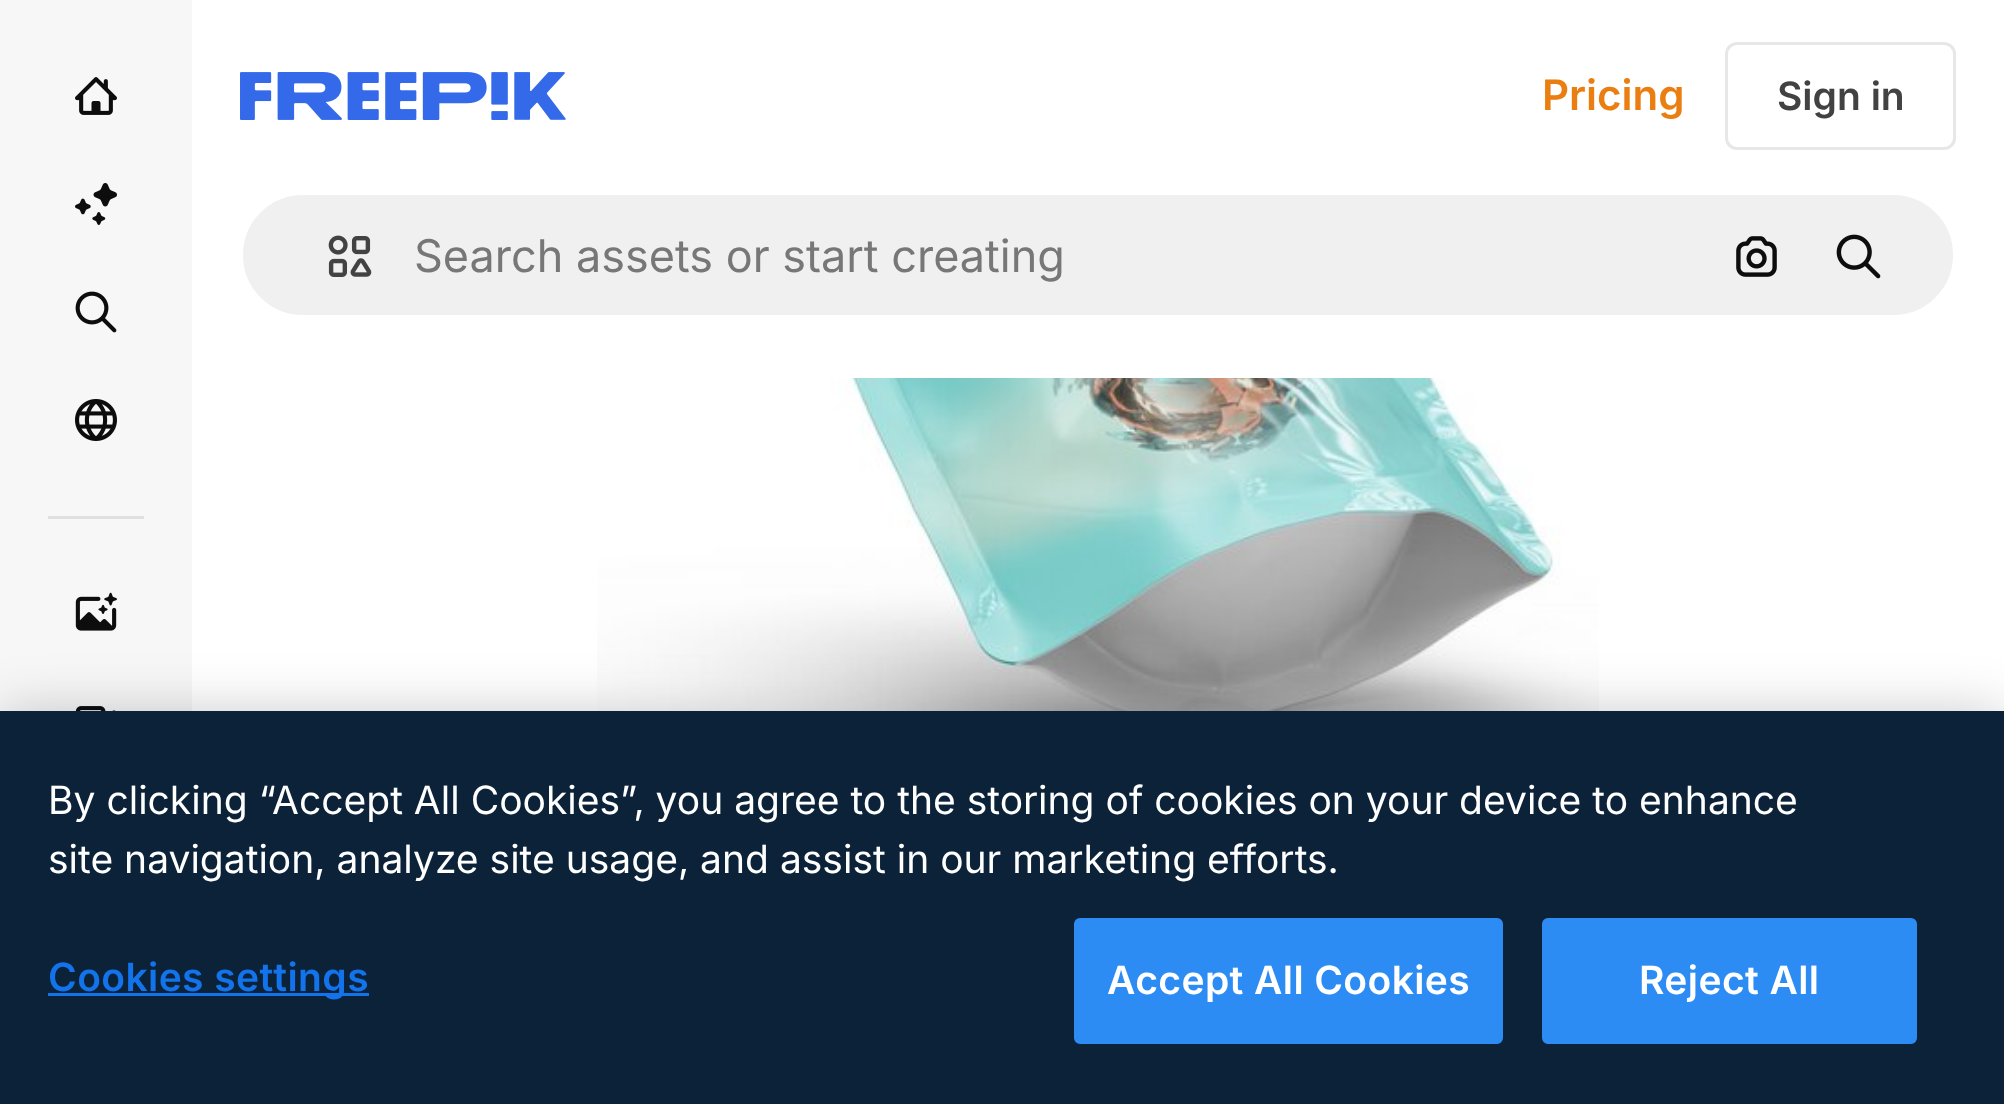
<!DOCTYPE html>
<meta charset="utf-8">
<style>body { margin: 0 } canvas { display: block }</style>
<canvas id="canvas" width="2004" height="1104"></canvas>
<script type="module">
  const canvas = document.getElementById("canvas");
  const g = canvas.getContext("2d");
  g.miterLimit = 4;
  g.fontKerning = "normal";
  function drawText(s, x, y, [font, color]) {
    g.font = font;
    g.fillStyle = color;
    g.fillText(s, x, y);
  }
  function fillBox(x, y, w, h, color) {
    g.fillStyle = color;
    g.fillRect(x, y, w, h);
  }
  async function drawPicture(src, x, y, w, h) {
    const img = new Image();
    img.src = src;
    await img.decode();
    g.drawImage(img, x, y, w, h);
  }

  const s1 = ["600 42px Inter", "#EA7E11"];
  const s2 = ["600 39px Inter", "#424242"];
  const s3 = ["45px Inter", "#777777"];
  const s4 = ["39px Inter", "#FFFFFF"];
  const s5 = ["600 39px Inter", "#1273EB"];
  const s6 = ["600 39px Inter", "#FFFFFF"];

  fillBox(0, 0, 2004, 1104, "#FFFFFF");
  fillBox(0, 0, 192, 711, "#F7F7F7");
  await drawPicture("pic1.png", 75, 77, 42, 38);
  await drawPicture("pic2.png", 75, 183, 42, 42);
  await drawPicture("pic3.png", 75, 291, 42, 42);
  await drawPicture("pic4.png", 75, 399, 42, 42);
  fillBox(48, 516, 96, 3, "#E0E0E0");
  await drawPicture("pic5.png", 75, 592, 42, 39);
  await drawPicture("pic6.png", 75, 706, 41, 5);
  await drawPicture("pic7.png", 240, 72, 326, 48);
  drawText("Pricing", 1542, 110, s1);
  g.beginPath();
  g.roundRect(1726.5, 43.5, 228, 105, 10.5);
  g.strokeStyle = "#E7E7E7";
  g.lineWidth = 3;
  g.stroke();
  drawText("Sign in", 1777, 110, s2);
  g.fillStyle = "#F0F0F0";
  g.beginPath();
  g.roundRect(241.5, 193.5, 1713, 123, 61.5);
  g.fill();
  g.strokeStyle = "#FFFFFF";
  g.stroke();
  await drawPicture("pic8.png", 328, 235, 44, 42);
  drawText("Search assets or start creating", 414, 272, s3);
  await drawPicture("pic9.png", 1736, 236, 41, 41);
  await drawPicture("pic10.png", 1836, 234, 45, 45);
  await drawPicture("pic11.png", 597, 378, 1002, 333);
  g.fillStyle = "rgba(0, 0, 0, 0.2)";
  g.filter = "blur(27px)";
  g.beginPath();
  g.rect(0, 711, 2004, 393);
  g.fill();
  g.filter = "none";
  fillBox(0, 711, 2004, 393, "#0B2239");
  drawText("By clicking “Accept All Cookies”, you agree to the storing of cookies on your device to enhance", 48, 814, s4);
  drawText("site navigation, analyze site usage, and assist in our marketing efforts.", 48, 873, s4);
  fillBox(48, 993, 321, 3, "#1273EB");
  g.letterSpacing = "0.4px";
  drawText("Cookies settings", 48, 991, s5);
  g.fillStyle = "#2C8CF4";
  g.beginPath();
  g.roundRect(1075.5, 919.5, 426, 123, 4.5);
  g.fill();
  g.strokeStyle = "#2C8CF4";
  g.stroke();
  drawText("Accept All Cookies", 1107, 994, s6);
  g.fillStyle = "#2C8CF4";
  g.beginPath();
  g.roundRect(1543.5, 919.5, 372, 123, 4.5);
  g.fill();
  g.stroke();
  drawText("Reject All", 1639, 994, s6);
</script>
